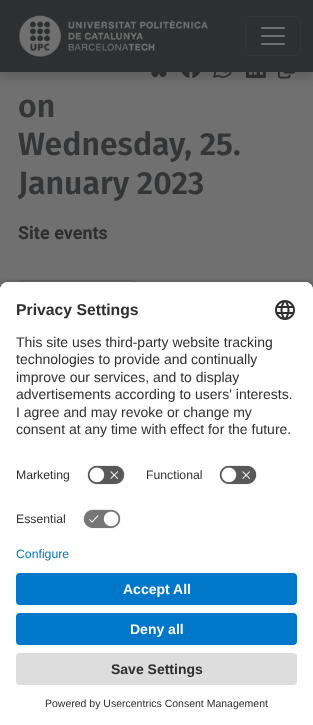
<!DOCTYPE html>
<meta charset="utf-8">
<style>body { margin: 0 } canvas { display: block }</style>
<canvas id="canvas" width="313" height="725"></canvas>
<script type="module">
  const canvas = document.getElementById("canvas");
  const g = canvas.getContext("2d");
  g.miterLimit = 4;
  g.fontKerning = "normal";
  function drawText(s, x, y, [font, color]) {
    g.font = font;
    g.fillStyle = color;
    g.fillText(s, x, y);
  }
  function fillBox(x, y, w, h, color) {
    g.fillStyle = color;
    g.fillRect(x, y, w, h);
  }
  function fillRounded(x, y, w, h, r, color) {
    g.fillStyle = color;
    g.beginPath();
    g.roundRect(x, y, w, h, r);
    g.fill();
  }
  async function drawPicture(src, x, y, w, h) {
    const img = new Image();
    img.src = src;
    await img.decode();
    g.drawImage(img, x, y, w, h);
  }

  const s1 = ["600 32px Fira Sans", "#333537"];
  const s2 = ["bold 18px Roboto", "#2E2F30"];
  const s3 = ["bold 15.75px Liberation Sans", "#2E2F30"];
  const s4 = ["14px Liberation Sans", "#2E2F30"];
  const s5 = ["12.25px Liberation Sans", "#2E2F30"];
  const s6 = ["12.25px Liberation Sans", "#0077C8"];
  const s7 = ["bold 14px Liberation Sans", "#FAFAFA"];
  const s8 = ["bold 14px Liberation Sans", "#2E2F30"];
  const s9 = ["10.5px Liberation Sans", "#2E2F30"];

  fillBox(0, 0, 313, 725, "#707070");
  await drawPicture("pic3.png", 151, 72, 16, 6);
  await drawPicture("pic4.png", 181, 72, 19, 6);
  await drawPicture("pic5.png", 213, 72, 19, 6);
  await drawPicture("pic6.png", 246, 72, 20, 6);
  await drawPicture("pic7.png", 278, 72, 18, 7);
  g.fillStyle = "rgba(36, 36, 36, 0.2)";
  g.filter = "blur(4px)";
  g.beginPath();
  g.rect(0, 7, 313, 72);
  g.fill();
  g.filter = "none";
  fillBox(0, 0, 313, 72, "#2E2F30");
  await drawPicture("pic1.png", 18, 15, 190, 42);
  g.beginPath();
  g.roundRect(245.5, 16.5, 55, 39, 5.5);
  g.strokeStyle = "#343536";
  g.stroke();
  await drawPicture("pic2.png", 261, 27, 24, 18);
  drawText("on", 18, 117, s1);
  drawText("Wednesday, 25.", 18, 155, s1);
  drawText("January 2023", 18, 194, s1);
  drawText("Site events", 18, 239, s2);
  g.beginPath();
  g.roundRect(18.5, 280.5, 119, 125, 5.5);
  g.strokeStyle = "#636363";
  g.stroke();
  g.fillStyle = "rgba(0, 0, 0, 0.8)";
  g.filter = "blur(3.5px)";
  g.beginPath();
  g.roundRect(0, 285, 313, 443, 8);
  g.fill();
  g.filter = "none";
  g.fillStyle = "#FFFFFF";
  g.beginPath();
  g.roundRect(0, 282, 313, 265, [8, 8, 0, 0]);
  g.fill();
  g.beginPath();
  g.roundRect(0, 282, 313, 177, [8, 8, 0, 0]);
  g.fill();
  drawText("Privacy Settings", 16, 315, s3);
  await drawPicture("pic8.png", 275, 300, 20, 20);
  drawText("This site uses third-party website tracking", 16, 347, s4);
  drawText("technologies to provide and continually", 16, 364, s4);
  drawText("improve our services, and to display", 16, 382, s4);
  drawText("advertisements according to users' interests.", 16, 399, s4);
  drawText("I agree and may revoke or change my", 16, 417, s4);
  drawText("consent at any time with effect for the future.", 16, 434, s4);
  drawText("Marketing", 16, 479, s5);
  await drawPicture("pic9.png", 87, 465, 38, 20);
  drawText("Functional", 146, 479, s5);
  await drawPicture("pic9.png", 219, 465, 38, 20);
  drawText("Essential", 16, 523, s5);
  await drawPicture("pic10.png", 83, 509, 38, 20);
  fillBox(0, 547, 313, 178, "#FFFFFF");
  drawText("Configure", 16, 558, s6);
  fillRounded(16, 573, 281, 32, 4, "#0077C8");
  drawText("Accept All", 123, 594, s7);
  fillRounded(16, 613, 281, 32, 4, "#0077C8");
  drawText("Deny all", 130, 634, s7);
  fillRounded(16, 653, 281, 32, 4, "#DDDDDD");
  drawText("Save Settings", 111, 674, s8);
  drawText("Powered by Usercentrics Consent Management", 45, 707, s9);
</script>
